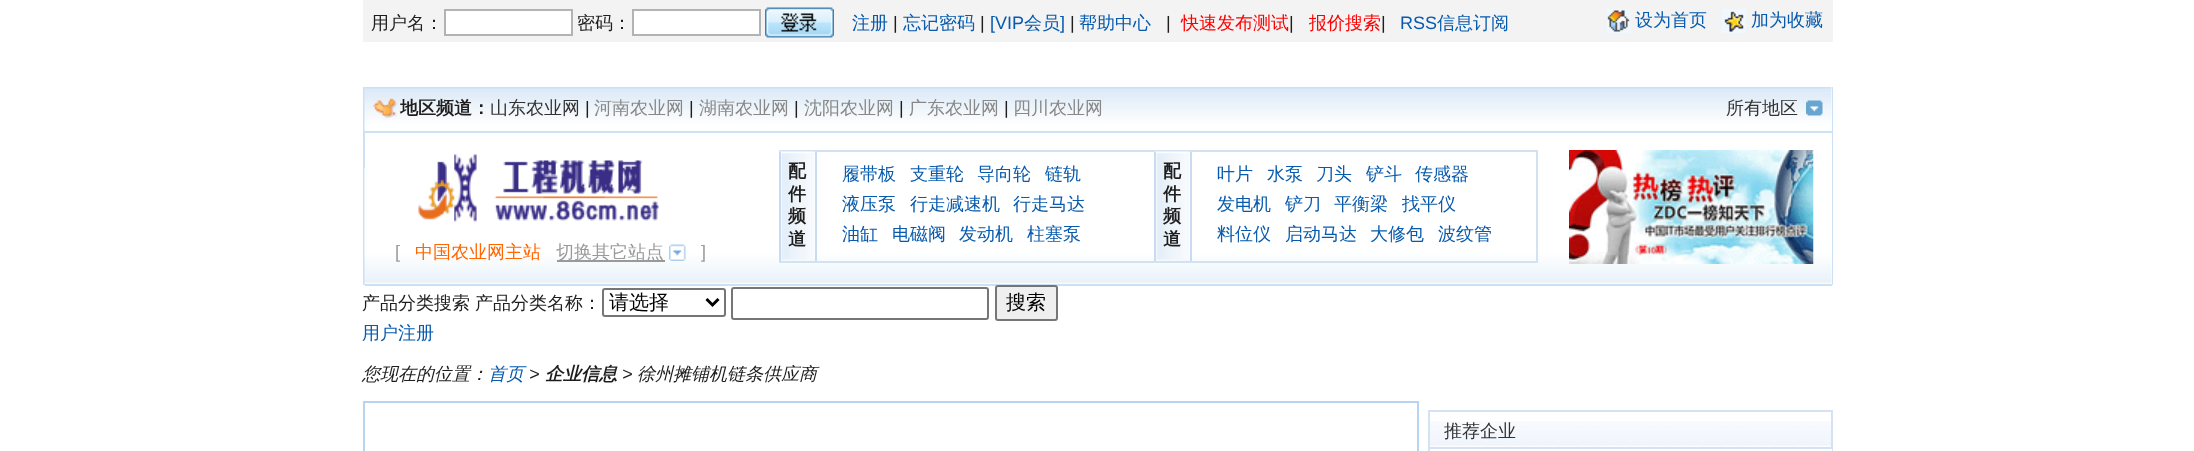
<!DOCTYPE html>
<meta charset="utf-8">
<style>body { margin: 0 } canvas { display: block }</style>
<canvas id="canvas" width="2194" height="451"></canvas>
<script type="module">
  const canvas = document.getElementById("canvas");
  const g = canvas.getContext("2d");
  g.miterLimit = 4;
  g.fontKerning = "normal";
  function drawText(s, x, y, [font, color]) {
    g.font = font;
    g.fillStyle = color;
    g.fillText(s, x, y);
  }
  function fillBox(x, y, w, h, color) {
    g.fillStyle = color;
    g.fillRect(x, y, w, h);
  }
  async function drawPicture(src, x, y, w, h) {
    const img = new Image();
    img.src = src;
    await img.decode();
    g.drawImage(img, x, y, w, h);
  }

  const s1 = ["500 18px WenQuanYi Zen Hei", "#1E1E1E"];
  const s2 = ["500 18px WenQuanYi Zen Hei", "#075AAD"];
  const s3 = ["18px Liberation Sans", "#1E1E1E"];
  const s4 = ["18px Liberation Sans", "#075AAD"];
  const s5 = ["500 18px WenQuanYi Zen Hei", "#FF0000"];
  const s6 = ["bold 18px WenQuanYi Zen Hei", "#1E1E1E"];
  const s7 = ["500 18px WenQuanYi Zen Hei", "#333333"];
  const s8 = ["500 18px WenQuanYi Zen Hei", "#888888"];
  const s9 = ["18px Liberation Sans", "#9A9A9A"];
  const s10 = ["500 18px WenQuanYi Zen Hei", "#FF6600"];
  const s11 = ["500 18px WenQuanYi Zen Hei", "#9A9A9A"];
  const s12 = ["500 20px WenQuanYi Zen Hei", "#000000"];
  const s13 = ["italic 500 18px WenQuanYi Zen Hei", "#1E1E1E"];
  const s14 = ["italic 500 18px WenQuanYi Zen Hei", "#075AAD"];
  const s15 = ["italic 18px Liberation Sans", "#1E1E1E"];
  const s16 = ["italic bold 18px WenQuanYi Zen Hei", "#1E1E1E"];

  fillBox(0, 0, 2194, 451, "#FFFFFF");
  fillBox(363, 0, 1470, 42, "#F3F3F3");
  drawText("用户名：", 371, 29, s1);
  g.fillStyle = "#FFFFFF";
  g.beginPath();
  g.rect(445, 10, 127, 25);
  g.fill();
  g.strokeStyle = "#B3B3B3";
  g.lineWidth = 2;
  g.stroke();
  drawText("密码：", 577, 29, s1);
  g.fillStyle = "#FFFFFF";
  g.beginPath();
  g.rect(633, 10, 127, 25);
  g.fill();
  g.stroke();
  await drawPicture("pic1.png", 765, 7, 69, 31);
  drawText("注册", 852, 29, s2);
  drawText("|", 893, 29, s3);
  drawText("忘记密码", 903, 29, s2);
  drawText("|", 980, 29, s3);
  drawText("[VIP", 990, 29, s4);
  drawText("会员", 1024, 29, s2);
  drawText("]", 1060, 29, s4);
  drawText("|", 1070, 29, s3);
  drawText("帮助中心", 1079, 29, s2);
  drawText("|", 1166, 29, s3);
  drawText("快速发布测试", 1181, 29, s5);
  drawText("|", 1289, 29, s3);
  drawText("报价搜索", 1309, 29, s5);
  drawText("|", 1381, 29, s3);
  drawText("RSS", 1400, 29, s4);
  drawText("信息订阅", 1437, 29, s2);
  await drawPicture("pic2.png", 1606, 9, 25, 24);
  drawText("设为首页", 1635, 26, s2);
  await drawPicture("pic3.png", 1722, 9, 24, 24);
  drawText("加为收藏", 1751, 26, s2);
  fillBox(1832, 87, 1, 198, "#CDE1F5");
  fillBox(363, 87, 2, 198, "#CDE1F5");
  await drawPicture("pic4.png", 364, 87, 1468, 44);
  fillBox(365, 131, 1467, 2, "#CDE1F5");
  await drawPicture("pic5.png", 373, 97, 25, 22);
  drawText("地区频道：", 400, 114, s6);
  drawText("山东农业网", 490, 114, s7);
  drawText("|", 585, 114, s3);
  drawText("河南农业网", 594, 114, s8);
  drawText("|", 689, 114, s3);
  drawText("湖南农业网", 699, 114, s8);
  drawText("|", 794, 114, s3);
  drawText("沈阳农业网", 804, 114, s8);
  drawText("|", 899, 114, s3);
  drawText("广东农业网", 909, 114, s8);
  drawText("|", 1004, 114, s3);
  drawText("四川农业网", 1013, 114, s8);
  drawText("所有地区", 1726, 114, s7);
  await drawPicture("pic6.png", 1806, 100, 17, 16);
  await drawPicture("pic7.png", 364, 168, 1468, 116);
  fillBox(365, 284, 1467, 2, "#CDE1F5");
  fillBox(779, 150, 759, 2, "#D2E2F0");
  fillBox(1536, 150, 2, 113, "#D2E2F0");
  fillBox(779, 261, 759, 2, "#D2E2F0");
  await drawPicture("pic8.png", 780, 151, 35, 110);
  fillBox(815, 152, 2, 109, "#C8DBF3");
  fillBox(779, 152, 2, 109, "#C8DBF3");
  drawText("配", 788, 177, s6);
  drawText("件", 788, 200, s6);
  drawText("频", 788, 222, s6);
  drawText("道", 788, 245, s6);
  drawText("履带板", 842, 180, s2);
  drawText("支重轮", 910, 180, s2);
  drawText("导向轮", 977, 180, s2);
  drawText("链轨", 1045, 180, s2);
  drawText("液压泵", 842, 210, s2);
  drawText("行走减速机", 910, 210, s2);
  drawText("行走马达", 1013, 210, s2);
  drawText("油缸", 842, 240, s2);
  drawText("电磁阀", 892, 240, s2);
  drawText("发动机", 959, 240, s2);
  drawText("柱塞泵", 1027, 240, s2);
  await drawPicture("pic9.png", 1155, 151, 35, 110);
  fillBox(1190, 152, 2, 109, "#C8DBF3");
  fillBox(1154, 152, 2, 109, "#C8DBF3");
  drawText("配", 1163, 177, s6);
  drawText("件", 1163, 200, s6);
  drawText("频", 1163, 222, s6);
  drawText("道", 1163, 245, s6);
  drawText("叶片", 1217, 180, s2);
  drawText("水泵", 1267, 180, s2);
  drawText("刀头", 1316, 180, s2);
  drawText("铲斗", 1366, 180, s2);
  drawText("传感器", 1415, 180, s2);
  drawText("发电机", 1217, 210, s2);
  drawText("铲刀", 1285, 210, s2);
  drawText("平衡梁", 1334, 210, s2);
  drawText("找平仪", 1402, 210, s2);
  drawText("料位仪", 1217, 240, s2);
  drawText("启动马达", 1285, 240, s2);
  drawText("大修包", 1370, 240, s2);
  drawText("波纹管", 1438, 240, s2);
  await drawPicture("pic10.png", 1569, 150, 245, 114);
  await drawPicture("pic11.png", 418, 154, 241, 69);
  drawText("[", 395, 258, s9);
  drawText("中国农业网主站", 415, 258, s10);
  fillBox(557, 260, 108, 2, "#9A9A9A");
  drawText("切换其它站点", 556, 258, s11);
  await drawPicture("pic12.png", 669, 244, 17, 17);
  drawText("]", 701, 258, s9);
  drawText("产品分类搜索", 362, 309, s1);
  drawText("产品分类名称：", 475, 309, s1);
  g.beginPath();
  g.roundRect(603, 289, 122, 27, 2);
  g.strokeStyle = "#767676";
  g.stroke();
  g.beginPath();
  g.moveTo(706.5, 299);
  g.lineTo(712.5, 305);
  g.lineTo(718.5, 299);
  g.strokeStyle = "#000000";
  g.lineWidth = 3;
  g.stroke();
  drawText("请选择", 609, 309, s12);
  g.beginPath();
  g.roundRect(732, 288, 256, 31, 2);
  g.strokeStyle = "#767676";
  g.lineWidth = 2;
  g.stroke();
  g.fillStyle = "#EFEFEF";
  g.beginPath();
  g.roundRect(996, 286, 61, 34, 2);
  g.fill();
  g.stroke();
  drawText("搜索", 1006, 309, s12);
  drawText("用户注册", 362, 339, s2);
  drawText("您现在的位置：", 362, 380, s13);
  drawText("首页", 488, 380, s14);
  drawText(">", 529, 380, s15);
  drawText("企业信息", 545, 380, s16);
  drawText(">", 622, 380, s15);
  drawText("徐州摊铺机链条供应商", 637, 380, s13);
  g.strokeStyle = "#B7D3F2";
  g.strokeRect(364, 402, 1054, 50);
  await drawPicture("pic13.png", 1430, 421, 401, 26);
  g.strokeStyle = "#D5E2F3";
  g.strokeRect(1429, 411, 403, 37);
  drawText("推荐企业", 1444, 437, s7);
  fillBox(1832, 449, 1, 2, "#D1E3F4");
  fillBox(1428, 449, 2, 2, "#D1E3F4");
</script>
